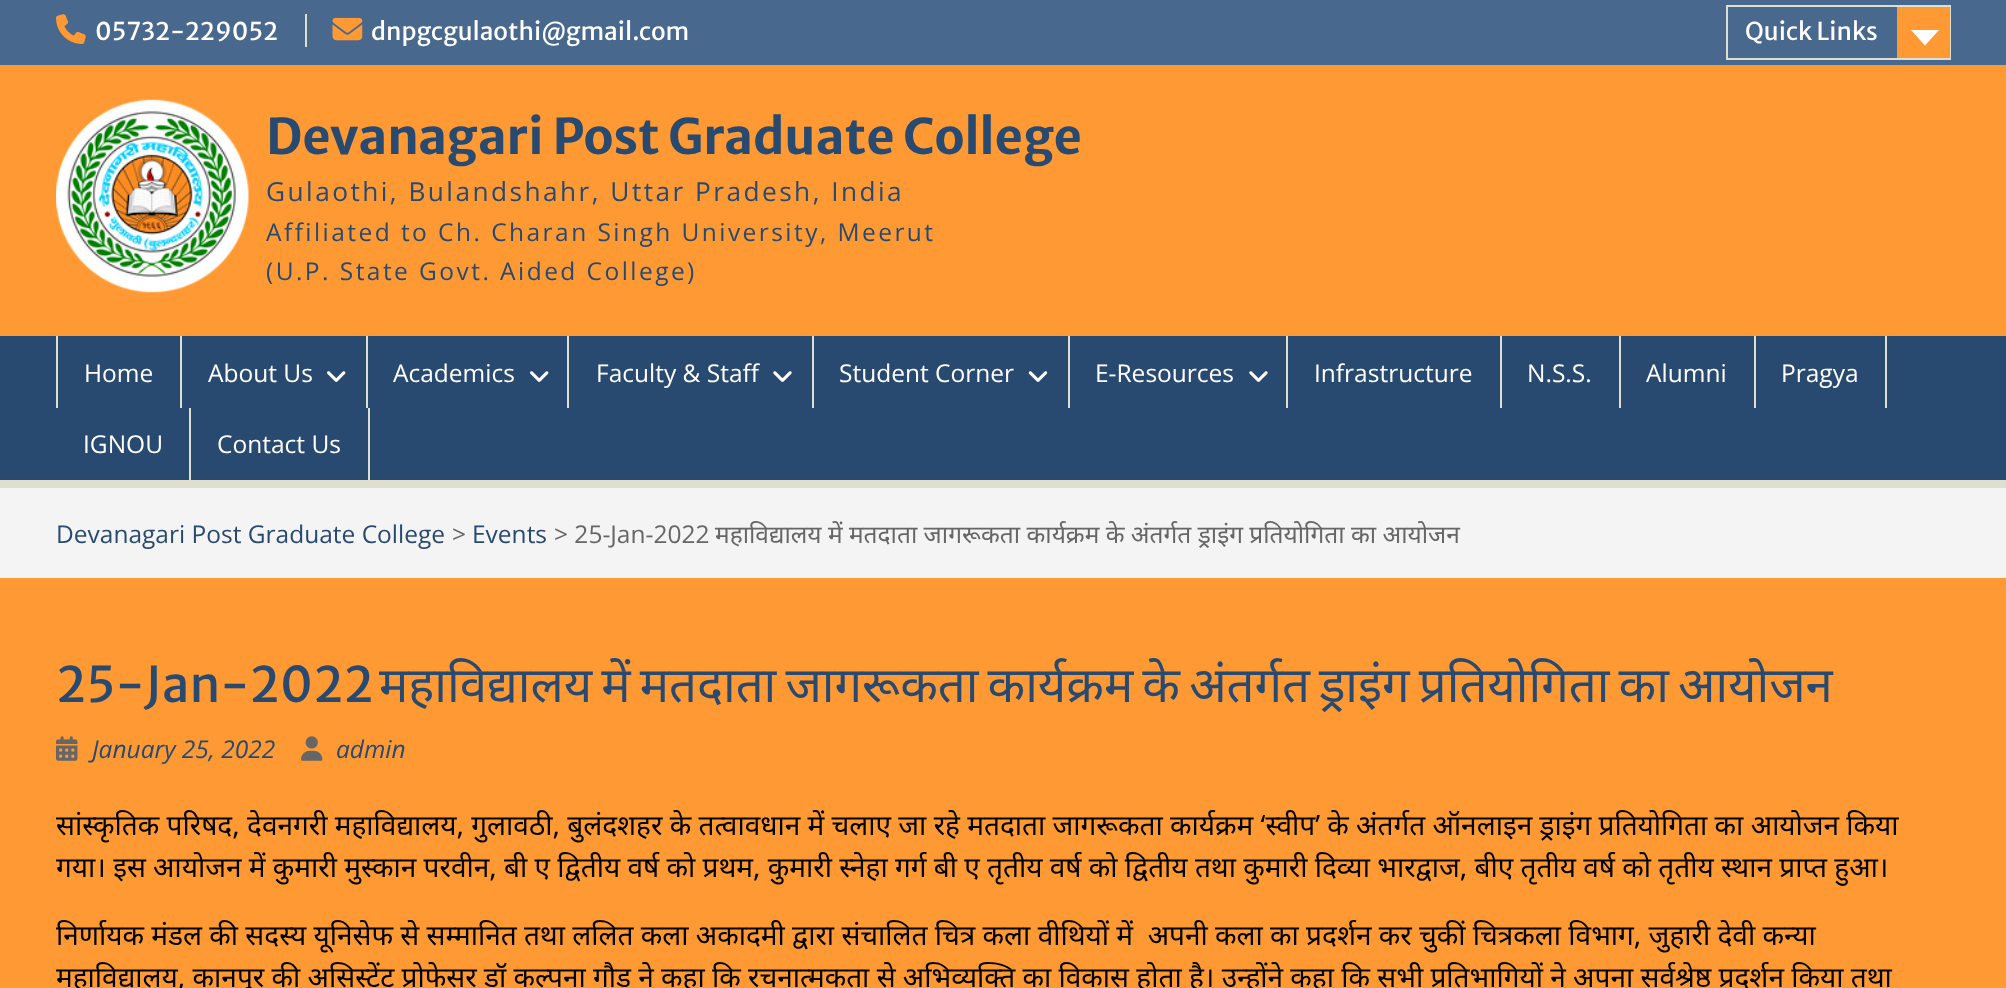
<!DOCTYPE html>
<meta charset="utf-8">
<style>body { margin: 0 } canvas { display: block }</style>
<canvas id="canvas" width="2006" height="988"></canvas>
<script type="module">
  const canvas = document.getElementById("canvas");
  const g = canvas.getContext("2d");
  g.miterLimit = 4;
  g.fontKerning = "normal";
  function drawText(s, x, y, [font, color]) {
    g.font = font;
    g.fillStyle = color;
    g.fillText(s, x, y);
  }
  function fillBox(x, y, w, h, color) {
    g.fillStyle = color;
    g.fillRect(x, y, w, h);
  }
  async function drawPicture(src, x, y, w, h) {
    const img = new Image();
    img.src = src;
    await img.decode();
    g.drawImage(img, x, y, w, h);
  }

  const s1 = ["24.5px Merriweather Sans", "#FFFFFF"];
  const s2 = ["bold 49px Merriweather Sans", "#294A70"];
  const s3 = ["26.25px Open Sans", "#294A70"];
  const s4 = ["24.5px Open Sans", "#294A70"];
  const s5 = ["24.5px Open Sans", "#FFFFFF"];
  const s6 = ["24.5px Open Sans", "#666666"];
  const s7 = ["24.5px Noto Sans", "#666666"];
  const s8 = ["49px Merriweather Sans", "#294A70"];
  const s9 = ["49px Noto Sans", "#294A70"];
  const s10 = ["italic 24.5px Open Sans", "#294A70"];
  const s11 = ["28px Noto Sans", "#000000"];

  fillBox(0, 0, 2006, 988, "#FF9933");
  fillBox(0, 0, 2006, 65, "#49688E");
  await drawPicture("pic1.png", 56, 14, 30, 30);
  drawText("05732-229052", 95, 40, s1);
  fillBox(305, 14, 2, 33, "#DFDFD0");
  await drawPicture("pic2.png", 332, 17, 31, 24);
  drawText("dnpgcgulaothi@gmail.com", 371, 40, s1);
  g.strokeStyle = "#DFDFD0";
  g.lineWidth = 2;
  g.strokeRect(1727, 6, 223, 53);
  drawText("Quick Links", 1745, 40, s1);
  fillBox(1897, 7, 53, 51, "#FF9933");
  g.fillStyle = "#FFFFFF";
  g.beginPath();
  g.moveTo(1911, 30);
  g.lineTo(1939, 30);
  g.lineTo(1925, 45.5);
  g.closePath();
  g.fill();
  await drawPicture("pic3.png", 56, 99, 193, 194);
  drawText("Devanagari Post Graduate College", 266, 154, s2);
  g.letterSpacing = "2.45px";
  drawText("Gulaothi, Bulandshahr, Uttar Pradesh, India", 266, 201, s3);
  drawText("Affiliated to Ch. Charan Singh University, Meerut", 266, 241, s4);
  drawText("(U.P. State Govt. Aided College)", 266, 280, s4);
  fillBox(0, 336, 2006, 144, "#294A70");
  fillBox(0, 480, 2006, 8, "#DFDFD0");
  fillBox(180, 336, 2, 72, "#DFDFD0");
  fillBox(56, 336, 2, 72, "#DFDFD0");
  g.letterSpacing = "0px";
  drawText("Home", 84, 382, s5);
  fillBox(366, 336, 2, 72, "#DFDFD0");
  drawText("About Us", 208, 382, s5);
  await drawPicture("pic4.png", 327, 371, 19, 11);
  fillBox(567, 336, 2, 72, "#DFDFD0");
  drawText("Academics", 393, 382, s5);
  await drawPicture("pic4.png", 530, 371, 19, 11);
  fillBox(812, 336, 2, 72, "#DFDFD0");
  drawText("Faculty & Staff", 596, 382, s5);
  await drawPicture("pic5.png", 773, 371, 19, 11);
  fillBox(1068, 336, 2, 72, "#DFDFD0");
  drawText("Student Corner", 839, 382, s5);
  await drawPicture("pic6.png", 1028, 371, 20, 11);
  fillBox(1286, 336, 2, 72, "#DFDFD0");
  drawText("E-Resources", 1095, 382, s5);
  await drawPicture("pic5.png", 1249, 371, 19, 11);
  fillBox(1500, 336, 2, 72, "#DFDFD0");
  drawText("Infrastructure", 1314, 382, s5);
  fillBox(1619, 336, 2, 72, "#DFDFD0");
  drawText("N.S.S.", 1527, 382, s5);
  fillBox(1754, 336, 2, 72, "#DFDFD0");
  drawText("Alumni", 1646, 382, s5);
  fillBox(1885, 336, 2, 72, "#DFDFD0");
  drawText("Pragya", 1781, 382, s5);
  fillBox(189, 408, 2, 72, "#DFDFD0");
  drawText("IGNOU", 83, 453, s5);
  fillBox(368, 408, 2, 72, "#DFDFD0");
  drawText("Contact Us", 217, 453, s5);
  fillBox(0, 488, 2006, 90, "#F4F4F4");
  drawText("Devanagari Post Graduate College", 56, 543, s4);
  drawText(">", 452, 543, s6);
  drawText("Events", 472, 543, s4);
  drawText("> 25-Jan-2022", 554, 543, s6);
  drawText("महाविद्यालय में मतदाता जागरूकता कार्यक्रम के अंतर्गत ड्राइंग प्रतियोगिता का आयोजन", 715, 543, s7);
  drawText("25-Jan-2022", 56, 702, s8);
  g.wordSpacing = "-3.6px";
  drawText("महाविद्यालय में मतदाता जागरूकता कार्यक्रम के अंतर्गत ड्राइंग प्रतियोगिता का आयोजन", 379, 702, s9);
  await drawPicture("pic7.png", 56, 736, 22, 25);
  g.wordSpacing = "0px";
  drawText("January 25, 2022", 92, 758, s10);
  await drawPicture("pic8.png", 301, 736, 22, 25);
  drawText("admin", 336, 758, s10);
  drawText("सांस्कृतिक परिषद, देवनगरी महाविद्यालय, गुलावठी, बुलंदशहर के तत्वावधान में चलाए जा रहे मतदाता जागरूकता कार्यक्रम ‘स्वीप’ के अंतर्गत ऑनलाइन ड्राइंग प्रतियोगिता का आयोजन किया", 56, 835, s11);
  drawText("गया। इस आयोजन में कुमारी मुस्कान परवीन, बी ए द्वितीय वर्ष को प्रथम, कुमारी स्नेहा गर्ग बी ए तृतीय वर्ष को द्वितीय तथा कुमारी दिव्या भारद्वाज, बीए तृतीय वर्ष को तृतीय स्थान प्राप्त हुआ।", 56, 877, s11);
  drawText("निर्णायक मंडल की सदस्य यूनिसेफ से सम्मानित तथा ललित कला अकादमी द्वारा संचालित चित्र कला वीथियों में  अपनी कला का प्रदर्शन कर चुकीं चित्रकला विभाग, जुहारी देवी कन्या", 56, 945, s11);
  drawText("महाविद्यालय, कानपुर की असिस्टेंट प्रोफेसर डॉ कल्पना गौड़ ने कहा कि रचनात्मकता से अभिव्यक्ति का विकास होता है। उन्होंने कहा कि सभी प्रतिभागियों ने अपना सर्वश्रेष्ठ प्रदर्शन किया तथा", 56, 987, s11);
</script>
